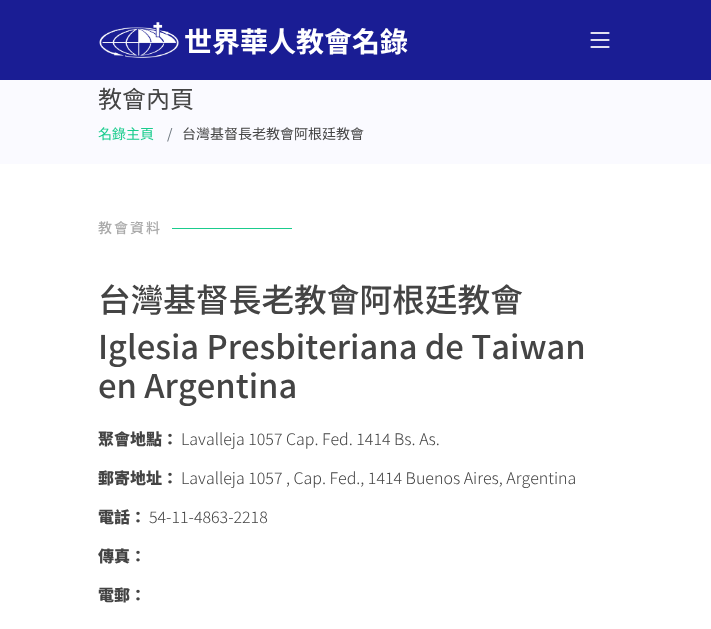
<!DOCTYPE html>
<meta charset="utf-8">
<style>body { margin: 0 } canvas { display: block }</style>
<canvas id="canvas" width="711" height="629"></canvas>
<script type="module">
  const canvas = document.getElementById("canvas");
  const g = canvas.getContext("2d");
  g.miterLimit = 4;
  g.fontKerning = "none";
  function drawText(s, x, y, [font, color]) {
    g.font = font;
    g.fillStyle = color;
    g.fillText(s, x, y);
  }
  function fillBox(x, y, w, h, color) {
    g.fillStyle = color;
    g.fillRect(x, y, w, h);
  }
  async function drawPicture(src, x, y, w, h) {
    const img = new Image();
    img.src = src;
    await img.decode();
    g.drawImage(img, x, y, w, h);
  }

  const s1 = ["bold 28px Noto Sans TC", "#FFFFFF"];
  const s2 = ["24px Noto Sans TC", "#444444"];
  const s3 = ["14px Noto Sans TC", "#1ACC8D"];
  const s4 = ["14px Noto Sans TC", "#6C757D"];
  const s5 = ["14px Noto Sans TC", "#444444"];
  const s6 = ["500 14px Noto Sans TC", "#AAAAAA"];
  const s7 = ["500 32.7px Noto Sans TC", "#444444"];
  const s8 = ["900 16px Noto Sans TC", "#444444"];
  const s9 = ["300 16px Noto Sans TC", "#444444"];

  fillBox(0, 0, 711, 629, "#FFFFFF");
  fillBox(0, 0, 711, 80, "#1A1D94");
  await drawPicture("pic1.png", 99, 22, 80, 36);
  drawText("世界華人教會名錄", 184, 52, s1);
  await drawPicture("pic2.png", 590, 32, 20, 16);
  fillBox(0, 80, 711, 84, "#FAFAFF");
  drawText("教會內頁", 98, 108, s2);
  drawText("名錄主頁", 98, 139, s3);
  drawText("/", 167, 139, s4);
  drawText("台灣基督長老教會阿根廷教會", 182, 139, s5);
  g.letterSpacing = "2px";
  drawText("教會資料", 98, 233, s6);
  fillBox(172, 228, 120, 1, "#1ACC8D");
  g.letterSpacing = "0px";
  drawText("台灣基督長老教會阿根廷教會", 98, 312, s7);
  drawText("Iglesia Presbiteriana de Taiwan", 98, 359, s7);
  drawText("en Argentina", 98, 398, s7);
  drawText("聚會地點：", 98, 445, s8);
  drawText("Lavalleja 1057 Cap. Fed. 1414 Bs. As.", 181, 445, s9);
  drawText("郵寄地址：", 98, 484, s8);
  drawText("Lavalleja 1057 , Cap. Fed., 1414 Buenos Aires, Argentina", 181, 484, s9);
  drawText("電話：", 98, 523, s8);
  drawText("54-11-4863-2218", 149, 523, s9);
  drawText("傳真：", 98, 562, s8);
  drawText("電郵：", 98, 601, s8);
</script>
